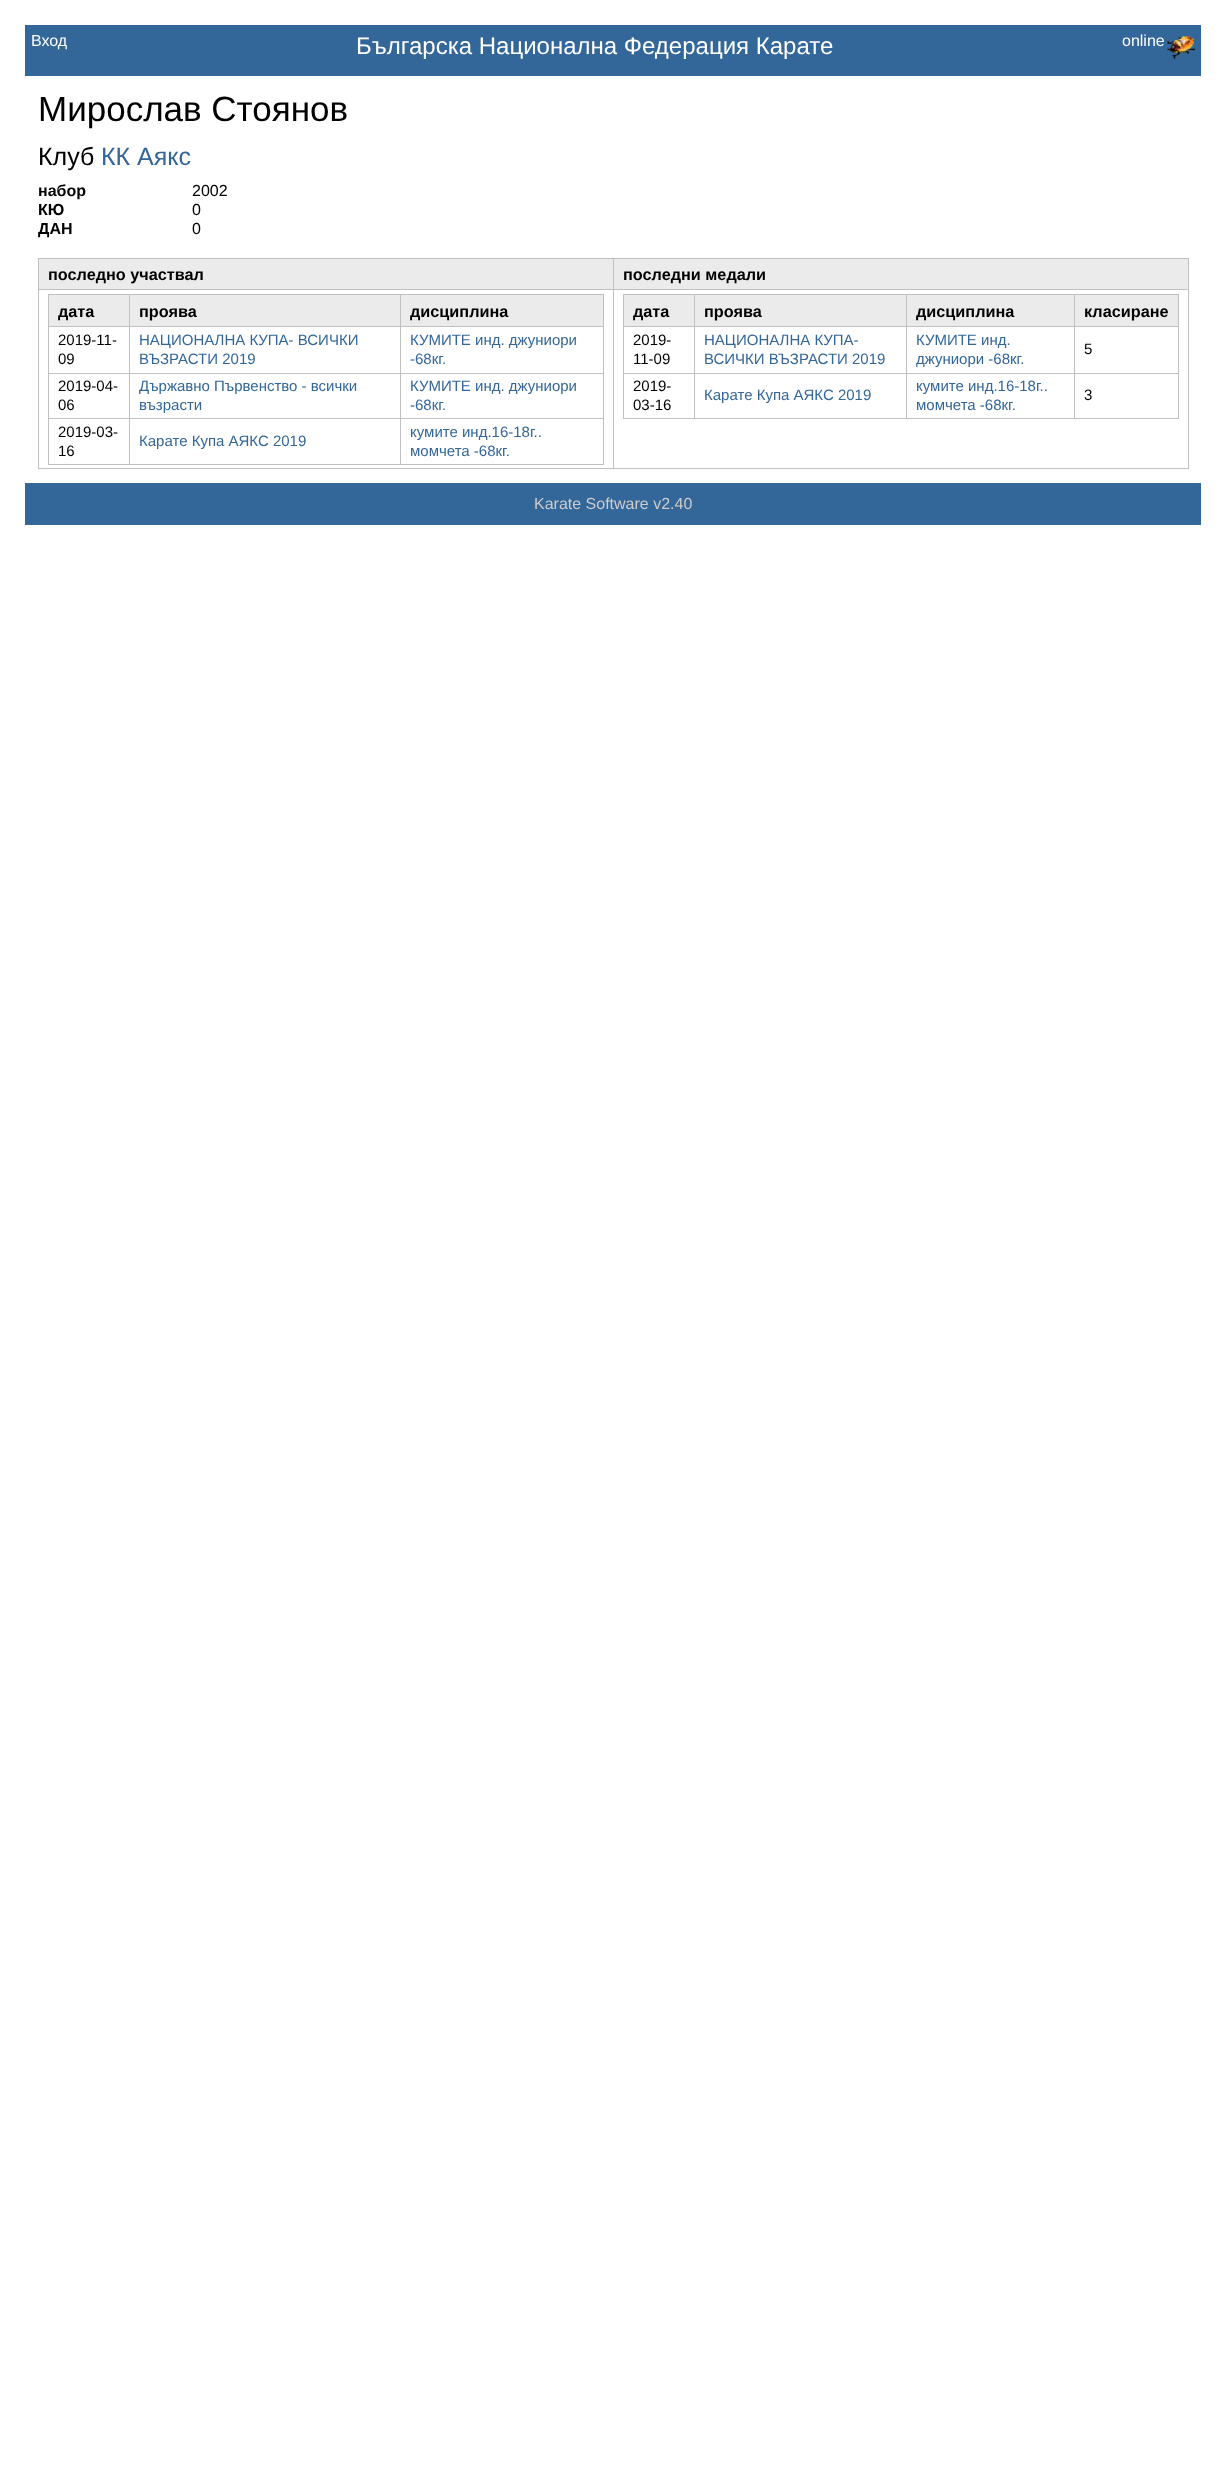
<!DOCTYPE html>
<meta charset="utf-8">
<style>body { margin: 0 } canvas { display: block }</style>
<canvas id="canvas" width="1226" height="2478"></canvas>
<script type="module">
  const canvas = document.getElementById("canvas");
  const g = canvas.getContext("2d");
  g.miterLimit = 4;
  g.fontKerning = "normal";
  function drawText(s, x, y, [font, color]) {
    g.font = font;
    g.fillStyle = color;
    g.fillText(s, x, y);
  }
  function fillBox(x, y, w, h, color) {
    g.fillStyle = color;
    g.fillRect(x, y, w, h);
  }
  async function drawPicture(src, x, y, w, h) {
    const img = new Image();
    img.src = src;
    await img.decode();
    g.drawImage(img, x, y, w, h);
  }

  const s1 = ["16px Liberation Sans", "#FFFFFF"];
  const s2 = ["24px Liberation Sans", "#FFFFFF"];
  const s3 = ["35px Liberation Sans", "#000000"];
  const s4 = ["25px Liberation Sans", "#000000"];
  const s5 = ["25px Liberation Sans", "#336699"];
  const s6 = ["bold 16px Liberation Sans", "#000000"];
  const s7 = ["16px Liberation Sans", "#000000"];
  const s8 = ["bold 16.25px Liberation Sans", "#000000"];
  const s9 = ["15px Liberation Sans", "#000000"];
  const s10 = ["15px Liberation Sans", "#336699"];
  const s11 = ["16px Liberation Sans", "#CCCCCC"];

  fillBox(0, 0, 1226, 2478, "#FFFFFF");
  fillBox(25, 25, 1176, 51, "#336699");
  drawText("Вход", 31, 46, s1);
  drawText("Българска Национална Федерация Карате", 356, 54, s2);
  drawText("online", 1122, 46, s1);
  await drawPicture("pic1.png", 1167, 36, 28, 23);
  drawText("Мирослав Стоянов", 38, 121, s3);
  drawText("Клуб", 38, 165, s4);
  drawText("КК Аякс", 101, 165, s5);
  drawText("набор", 38, 196, s6);
  drawText("2002", 192, 196, s7);
  drawText("КЮ", 38, 215, s6);
  drawText("0", 192, 215, s7);
  drawText("ДАН", 38, 234, s6);
  drawText("0", 192, 234, s7);
  fillBox(39, 259, 574, 30, "#EBEBEB");
  fillBox(613, 258, 576, 1, "#C0C0C0");
  fillBox(613, 289, 576, 1, "#C0C0C0");
  fillBox(1188, 289, 1, 180, "#C0C0C0");
  fillBox(613, 468, 576, 1, "#C0C0C0");
  fillBox(613, 289, 1, 180, "#C0C0C0");
  fillBox(38, 289, 576, 1, "#C0C0C0");
  fillBox(613, 258, 1, 32, "#C0C0C0");
  fillBox(38, 258, 576, 1, "#C0C0C0");
  fillBox(38, 468, 576, 1, "#C0C0C0");
  fillBox(38, 289, 1, 180, "#C0C0C0");
  fillBox(38, 258, 1, 32, "#C0C0C0");
  drawText("последно участвал", 48, 280, s8);
  fillBox(614, 259, 574, 30, "#EBEBEB");
  fillBox(1188, 258, 1, 32, "#C0C0C0");
  drawText("последни медали", 623, 280, s8);
  fillBox(49, 295, 80, 31, "#EBEBEB");
  fillBox(400, 294, 204, 1, "#C0C0C0");
  fillBox(400, 326, 204, 1, "#C0C0C0");
  fillBox(400, 373, 204, 1, "#C0C0C0");
  fillBox(400, 418, 204, 1, "#C0C0C0");
  fillBox(603, 418, 1, 47, "#C0C0C0");
  fillBox(400, 464, 204, 1, "#C0C0C0");
  fillBox(400, 418, 1, 47, "#C0C0C0");
  fillBox(129, 418, 272, 1, "#C0C0C0");
  fillBox(400, 373, 1, 46, "#C0C0C0");
  fillBox(129, 373, 272, 1, "#C0C0C0");
  fillBox(400, 326, 1, 48, "#C0C0C0");
  fillBox(129, 326, 272, 1, "#C0C0C0");
  fillBox(400, 294, 1, 34, "#C0C0C0");
  fillBox(129, 294, 272, 1, "#C0C0C0");
  fillBox(129, 464, 272, 1, "#C0C0C0");
  fillBox(129, 418, 1, 47, "#C0C0C0");
  fillBox(48, 418, 82, 1, "#C0C0C0");
  fillBox(129, 373, 1, 46, "#C0C0C0");
  fillBox(48, 373, 82, 1, "#C0C0C0");
  fillBox(129, 326, 1, 48, "#C0C0C0");
  fillBox(48, 326, 82, 1, "#C0C0C0");
  fillBox(129, 294, 1, 34, "#C0C0C0");
  fillBox(48, 294, 82, 1, "#C0C0C0");
  fillBox(48, 464, 82, 1, "#C0C0C0");
  fillBox(48, 418, 1, 47, "#C0C0C0");
  fillBox(48, 373, 1, 46, "#C0C0C0");
  fillBox(48, 326, 1, 48, "#C0C0C0");
  fillBox(48, 294, 1, 34, "#C0C0C0");
  drawText("дата", 58, 317, s8);
  fillBox(130, 295, 270, 31, "#EBEBEB");
  drawText("проява", 139, 317, s8);
  fillBox(401, 295, 202, 31, "#EBEBEB");
  fillBox(603, 373, 1, 46, "#C0C0C0");
  fillBox(603, 326, 1, 48, "#C0C0C0");
  fillBox(603, 294, 1, 34, "#C0C0C0");
  drawText("дисциплина", 410, 317, s8);
  drawText("2019-11-", 58, 345, s9);
  drawText("09", 58, 364, s9);
  drawText("НАЦИОНАЛНА КУПА- ВСИЧКИ", 139, 345, s10);
  drawText("ВЪЗРАСТИ 2019", 139, 364, s10);
  drawText("КУМИТЕ инд. джуниори", 410, 345, s10);
  drawText("-68кг.", 410, 364, s10);
  drawText("2019-04-", 58, 391, s9);
  drawText("06", 58, 410, s9);
  drawText("Държавно Първенство - всички", 139, 391, s10);
  drawText("възрасти", 139, 410, s10);
  drawText("КУМИТЕ инд. джуниори", 410, 391, s10);
  drawText("-68кг.", 410, 410, s10);
  drawText("2019-03-", 58, 437, s9);
  drawText("16", 58, 456, s9);
  drawText("Карате Купа АЯКС 2019", 139, 446, s10);
  drawText("кумите инд.16-18г..", 410, 437, s10);
  drawText("момчета -68кг.", 410, 456, s10);
  fillBox(624, 295, 70, 31, "#EBEBEB");
  fillBox(1074, 294, 105, 1, "#C0C0C0");
  fillBox(1074, 326, 105, 1, "#C0C0C0");
  fillBox(1074, 373, 105, 1, "#C0C0C0");
  fillBox(1178, 373, 1, 46, "#C0C0C0");
  fillBox(1074, 418, 105, 1, "#C0C0C0");
  fillBox(1074, 373, 1, 46, "#C0C0C0");
  fillBox(906, 373, 169, 1, "#C0C0C0");
  fillBox(1074, 326, 1, 48, "#C0C0C0");
  fillBox(906, 326, 169, 1, "#C0C0C0");
  fillBox(1074, 294, 1, 34, "#C0C0C0");
  fillBox(906, 294, 169, 1, "#C0C0C0");
  fillBox(906, 418, 169, 1, "#C0C0C0");
  fillBox(906, 373, 1, 46, "#C0C0C0");
  fillBox(694, 373, 214, 1, "#C0C0C0");
  fillBox(906, 326, 1, 48, "#C0C0C0");
  fillBox(694, 326, 214, 1, "#C0C0C0");
  fillBox(906, 294, 1, 34, "#C0C0C0");
  fillBox(694, 294, 214, 1, "#C0C0C0");
  fillBox(694, 418, 214, 1, "#C0C0C0");
  fillBox(694, 373, 1, 46, "#C0C0C0");
  fillBox(623, 373, 72, 1, "#C0C0C0");
  fillBox(694, 326, 1, 48, "#C0C0C0");
  fillBox(623, 326, 72, 1, "#C0C0C0");
  fillBox(694, 294, 1, 34, "#C0C0C0");
  fillBox(623, 294, 72, 1, "#C0C0C0");
  fillBox(623, 418, 72, 1, "#C0C0C0");
  fillBox(623, 373, 1, 46, "#C0C0C0");
  fillBox(623, 326, 1, 48, "#C0C0C0");
  fillBox(623, 294, 1, 34, "#C0C0C0");
  drawText("дата", 633, 317, s8);
  fillBox(695, 295, 211, 31, "#EBEBEB");
  drawText("проява", 704, 317, s8);
  fillBox(907, 295, 167, 31, "#EBEBEB");
  drawText("дисциплина", 916, 317, s8);
  fillBox(1075, 295, 103, 31, "#EBEBEB");
  fillBox(1178, 326, 1, 48, "#C0C0C0");
  fillBox(1178, 294, 1, 34, "#C0C0C0");
  drawText("класиране", 1084, 317, s8);
  drawText("2019-", 633, 345, s9);
  drawText("11-09", 633, 364, s9);
  drawText("НАЦИОНАЛНА КУПА-", 704, 345, s10);
  drawText("ВСИЧКИ ВЪЗРАСТИ 2019", 704, 364, s10);
  drawText("КУМИТЕ инд.", 916, 345, s10);
  drawText("джуниори -68кг.", 916, 364, s10);
  drawText("5", 1084, 354, s9);
  drawText("2019-", 633, 391, s9);
  drawText("03-16", 633, 410, s9);
  drawText("Карате Купа АЯКС 2019", 704, 400, s10);
  drawText("кумите инд.16-18г..", 916, 391, s10);
  drawText("момчета -68кг.", 916, 410, s10);
  drawText("3", 1084, 400, s9);
  fillBox(25, 483, 1176, 42, "#336699");
  drawText("Karate Software v2.40", 534, 509, s11);
</script>
